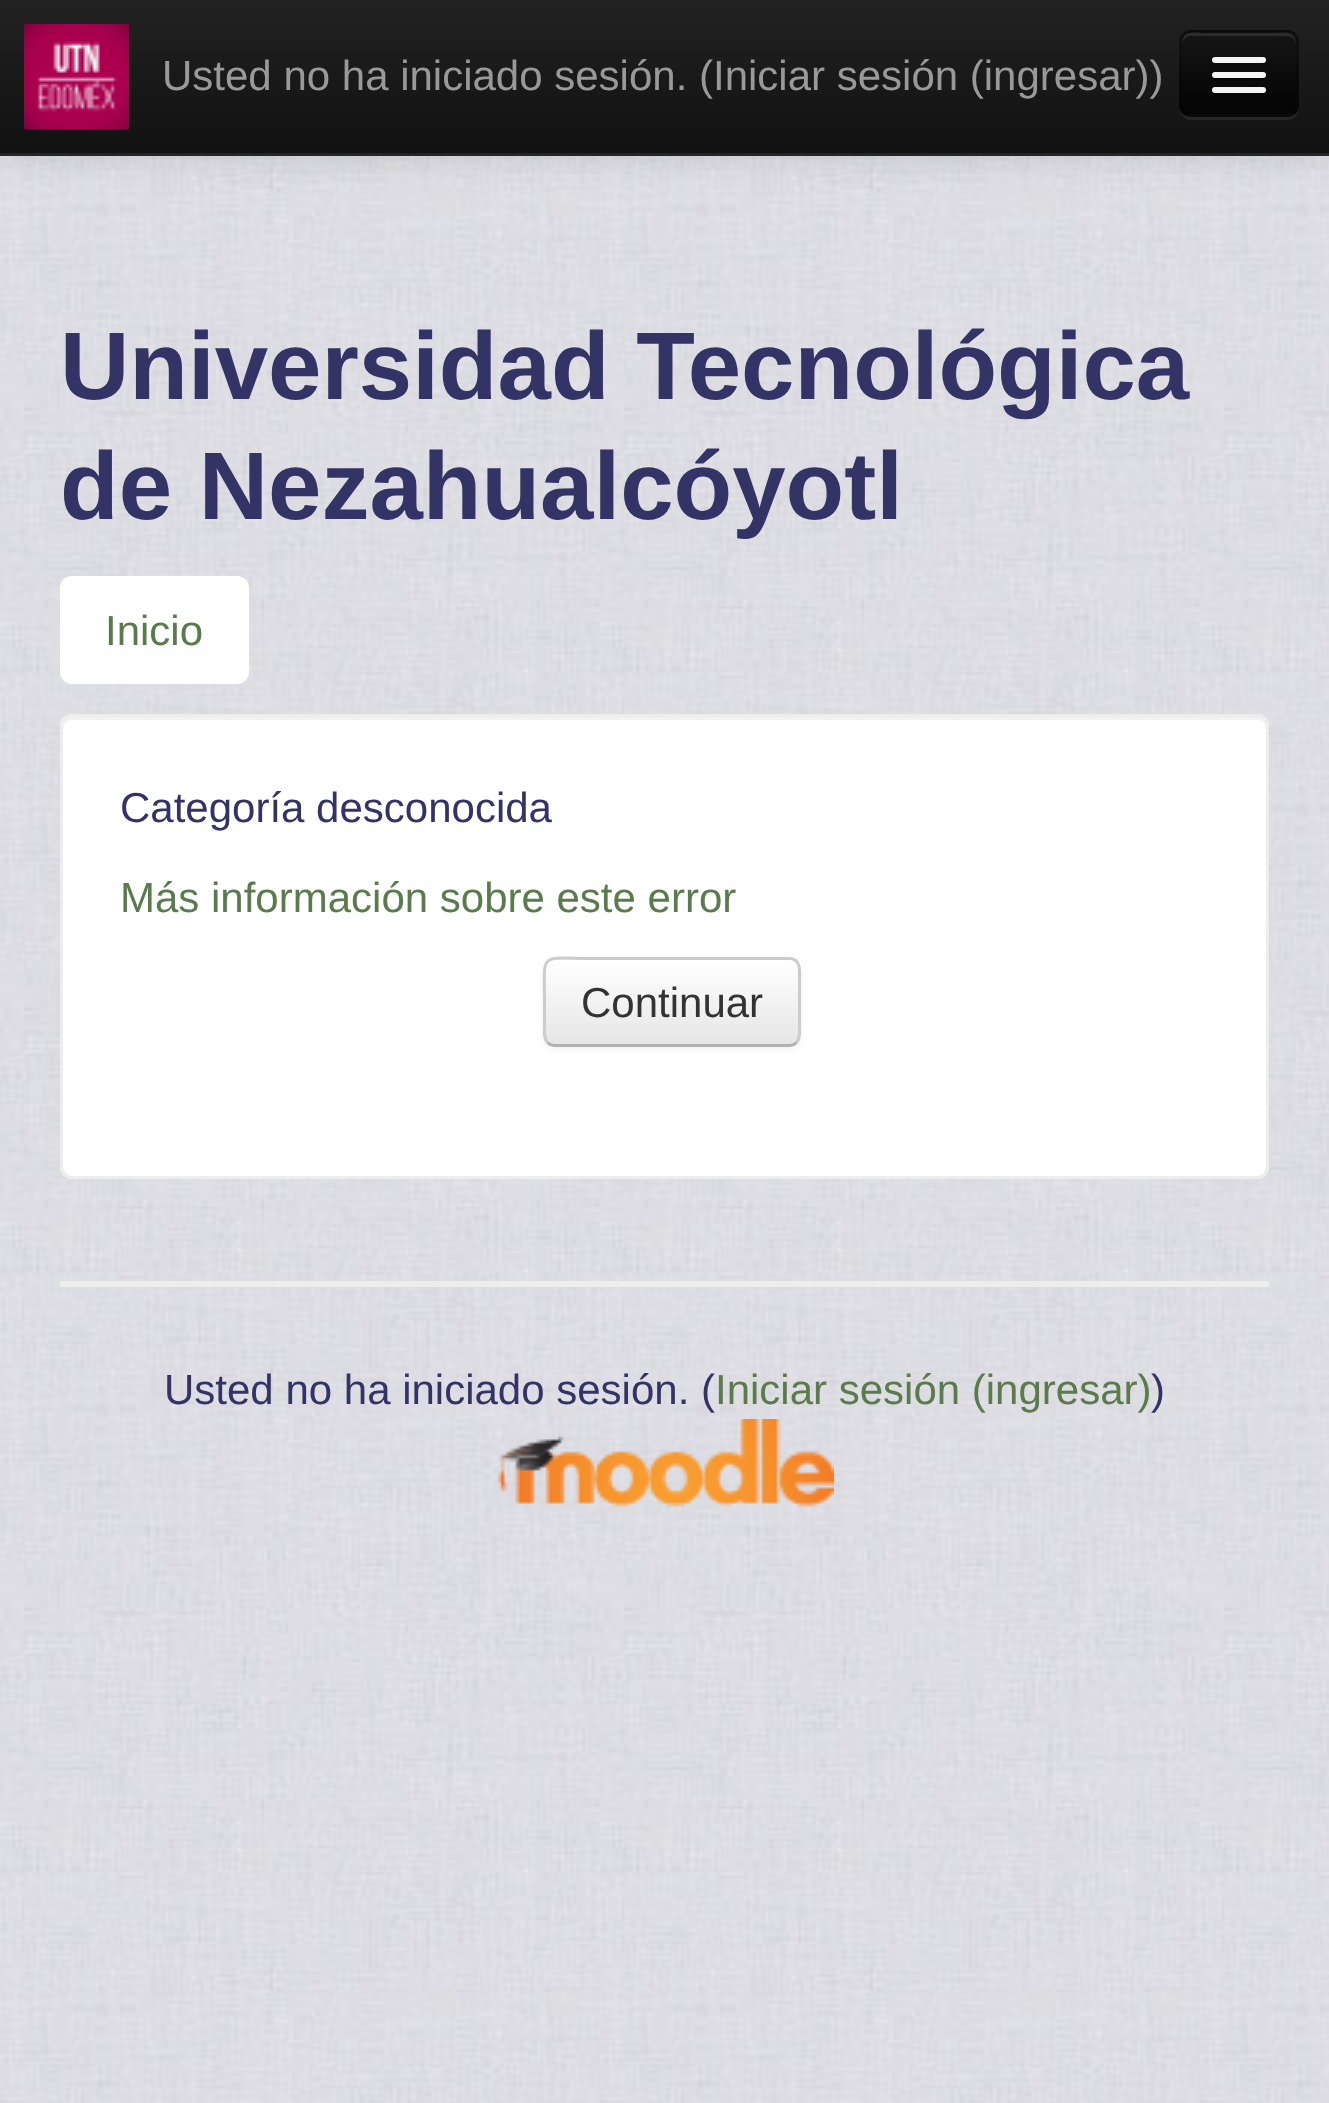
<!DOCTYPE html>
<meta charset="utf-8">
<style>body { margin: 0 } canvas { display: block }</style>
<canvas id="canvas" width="1329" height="2103"></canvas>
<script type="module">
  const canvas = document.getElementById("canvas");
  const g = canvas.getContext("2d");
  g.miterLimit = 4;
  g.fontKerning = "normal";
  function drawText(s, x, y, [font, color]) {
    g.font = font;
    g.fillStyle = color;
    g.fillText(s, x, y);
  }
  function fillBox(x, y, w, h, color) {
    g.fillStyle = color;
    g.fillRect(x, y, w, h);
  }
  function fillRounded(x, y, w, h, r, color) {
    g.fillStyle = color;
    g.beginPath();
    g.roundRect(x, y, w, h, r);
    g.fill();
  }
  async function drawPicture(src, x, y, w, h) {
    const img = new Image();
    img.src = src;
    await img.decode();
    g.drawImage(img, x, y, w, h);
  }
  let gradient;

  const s1 = ["42px Liberation Sans", "#999999"];
  const s2 = ["bold 96px Liberation Sans", "#333366"];
  const s3 = ["42px Liberation Sans", "#5A7B4C"];
  const s4 = ["42px Liberation Sans", "#333366"];
  const s5 = ["42px Liberation Sans", "#333333"];

  fillBox(0, 0, 1329, 2103, "#FFFFFF");
  await drawPicture("pic1.png", 0, 156, 1329, 1947);
  g.fillStyle = "rgba(0, 0, 0, 0.1)";
  g.filter = "blur(15px)";
  g.beginPath();
  g.rect(0, 3, 1329, 156);
  g.fill();
  g.filter = "none";
  gradient = g.createLinearGradient(665, 0, 665, 153);
  gradient.addColorStop(0, "#222222");
  gradient.addColorStop(1, "#111111");
  g.fillStyle = gradient;
  g.fillRect(0, 0, 1329, 153);
  fillBox(0, 153, 1329, 3, "#252525");
  await drawPicture("pic2.png", 24, 24, 105, 105);
  drawText("Usted no ha iniciado sesión. (Iniciar sesión (ingresar))", 162, 90, s1);
  g.fillStyle = "#272727";
  g.beginPath();
  g.moveTo(1179, 105);
  g.bezierCurveTo(1179, 123, 1193, 120, 1207, 120);
  g.lineTo(1271, 120);
  g.bezierCurveTo(1285, 120, 1299, 123, 1299, 105);
  g.bezierCurveTo(1299, 112, 1294, 117, 1287, 117);
  g.lineTo(1191, 117);
  g.bezierCurveTo(1184, 117, 1179, 112, 1179, 105);
  g.closePath();
  g.fill();
  fillRounded(1179, 30, 120, 87, 12, "#0E0E0E");
  g.save();
  g.beginPath();
  g.roundRect(1179, 30, 120, 87, 12);
  g.clip();
  gradient = g.createLinearGradient(1239, 33, 1239, 114);
  gradient.addColorStop(0, "#151515");
  gradient.addColorStop(1, "#040404");
  g.fillStyle = gradient;
  g.fillRect(1179, 33, 120, 81);
  g.restore();
  g.fillStyle = "#2C2C2C";
  g.beginPath();
  g.moveTo(1191, 36);
  g.lineTo(1287, 36);
  g.bezierCurveTo(1292, 36, 1296, 40, 1296, 45);
  g.bezierCurveTo(1296, 29, 1284, 33, 1271, 33);
  g.lineTo(1207, 33);
  g.bezierCurveTo(1194, 33, 1182, 29, 1182, 45);
  g.bezierCurveTo(1182, 40, 1186, 36, 1191, 36);
  g.closePath();
  g.fill();
  g.beginPath();
  g.moveTo(1294.5, 112.5);
  g.bezierCurveTo(1292.5, 114.5, 1290, 115.5, 1287, 115.5);
  g.lineTo(1191, 115.5);
  g.bezierCurveTo(1188, 115.5, 1185.5, 114.5, 1183.5, 112.5);
  g.strokeStyle = "rgba(0, 0, 0, 0.25)";
  g.lineWidth = 3;
  g.stroke();
  g.beginPath();
  g.moveTo(1183.5, 112.5);
  g.bezierCurveTo(1181.5, 110.5, 1180.5, 108, 1180.5, 105);
  g.lineTo(1180.5, 42);
  g.bezierCurveTo(1180.5, 39, 1181.5, 36.5, 1183.5, 34.5);
  g.bezierCurveTo(1185.5, 32.5, 1188, 31.5, 1191, 31.5);
  g.lineTo(1287, 31.5);
  g.bezierCurveTo(1290, 31.5, 1292.5, 32.5, 1294.5, 34.5);
  g.bezierCurveTo(1296.5, 36.5, 1297.5, 39, 1297.5, 42);
  g.lineTo(1297.5, 105);
  g.bezierCurveTo(1297.5, 108, 1296.5, 110.5, 1294.5, 112.5);
  g.strokeStyle = "rgba(0, 0, 0, 0.1)";
  g.stroke();
  g.fillStyle = "#0B0B0B";
  g.beginPath();
  g.moveTo(1212, 62);
  g.bezierCurveTo(1209, 68, 1223, 66, 1223, 66);
  g.lineTo(1255, 66);
  g.bezierCurveTo(1255, 66, 1269, 68, 1266, 62);
  g.bezierCurveTo(1265, 62, 1264, 63, 1263, 63);
  g.lineTo(1215, 63);
  g.bezierCurveTo(1214, 63, 1213, 62, 1212, 62);
  g.closePath();
  g.fill();
  fillRounded(1212, 57, 54, 6, 3, "#F5F5F5");
  g.fillStyle = "#080808";
  g.beginPath();
  g.moveTo(1212, 76);
  g.bezierCurveTo(1209, 83, 1223, 81, 1223, 81);
  g.lineTo(1255, 81);
  g.bezierCurveTo(1255, 81, 1269, 83, 1266, 76);
  g.bezierCurveTo(1265, 77, 1264, 78, 1263, 78);
  g.lineTo(1215, 78);
  g.bezierCurveTo(1214, 78, 1213, 77, 1212, 76);
  g.closePath();
  g.fill();
  fillRounded(1212, 72, 54, 6, 3, "#F5F5F5");
  g.fillStyle = "#060606";
  g.beginPath();
  g.moveTo(1212, 92);
  g.bezierCurveTo(1209, 98, 1223, 96, 1223, 96);
  g.lineTo(1255, 96);
  g.bezierCurveTo(1255, 96, 1269, 98, 1266, 92);
  g.bezierCurveTo(1265, 92, 1264, 93, 1263, 93);
  g.lineTo(1215, 93);
  g.bezierCurveTo(1214, 93, 1213, 92, 1212, 92);
  g.closePath();
  g.fill();
  fillRounded(1212, 87, 54, 6, 3, "#F5F5F5");
  drawText("Universidad Tecnológica", 60, 399, s2);
  drawText("de Nezahualcóyotl", 60, 519, s2);
  fillRounded(60, 576, 189, 108, 12, "#FFFFFF");
  drawText("Inicio", 105, 645, s3);
  fillRounded(60, 714, 1209, 465, 12, "#FFFFFF");
  g.fillStyle = "#F2F2F2";
  g.beginPath();
  g.moveTo(72, 720);
  g.lineTo(1257, 720);
  g.bezierCurveTo(1262, 720, 1266, 724, 1266, 729);
  g.lineTo(1266, 726);
  g.bezierCurveTo(1266, 721, 1262, 717, 1257, 717);
  g.lineTo(72, 717);
  g.bezierCurveTo(67, 717, 63, 721, 63, 726);
  g.lineTo(63, 729);
  g.bezierCurveTo(63, 724, 67, 720, 72, 720);
  g.closePath();
  g.fill();
  g.beginPath();
  g.roundRect(61.5, 715.5, 1206, 462, 10.5);
  g.strokeStyle = "#EDEDED";
  g.stroke();
  drawText("Categoría desconocida", 120, 822, s4);
  drawText("Más información sobre este error", 120, 912, s3);
  g.fillStyle = "rgba(0, 0, 0, 0.05)";
  g.filter = "blur(3px)";
  g.beginPath();
  g.roundRect(543, 960, 258, 90, 12);
  g.fill();
  g.filter = "none";
  fillRounded(543, 957, 258, 90, 12, "#F5F5F5");
  g.save();
  g.beginPath();
  g.roundRect(543, 957, 258, 90, 12);
  g.clip();
  gradient = g.createLinearGradient(672, 960, 672, 1044);
  gradient.addColorStop(0, "#FFFFFF");
  gradient.addColorStop(1, "#E6E6E6");
  g.fillStyle = gradient;
  g.fillRect(543, 960, 258, 84);
  g.restore();
  g.beginPath();
  g.moveTo(796.5, 1042.5);
  g.bezierCurveTo(794.5, 1044.5, 792, 1045.5, 789, 1045.5);
  g.lineTo(555, 1045.5);
  g.bezierCurveTo(552, 1045.5, 549.5, 1044.5, 547.5, 1042.5);
  g.strokeStyle = "#B3B3B3";
  g.stroke();
  g.beginPath();
  g.moveTo(547.5, 1042.5);
  g.bezierCurveTo(543, 1037.5, 544.5, 1029.5, 544.5, 1024);
  g.lineTo(544.5, 1002);
  g.bezierCurveTo(544.5, 950, 538, 958.5, 594, 958.5);
  g.lineTo(789, 958.5);
  g.bezierCurveTo(801.5, 958.5, 799.5, 972, 799.5, 980);
  g.lineTo(799.5, 1024);
  g.bezierCurveTo(799.5, 1029.5, 801, 1037.5, 796.5, 1042.5);
  g.strokeStyle = "#CCCCCC";
  g.stroke();
  drawText("Continuar", 581, 1017, s5);
  fillBox(60, 1281, 1209, 6, "#EDEDED");
  drawText("Usted no ha iniciado sesión. (", 164, 1404, s4);
  drawText("Iniciar sesión (ingresar)", 715, 1404, s3);
  drawText(")", 1151, 1404, s4);
  await drawPicture("pic3.png", 498, 1419, 336, 88);
</script>
